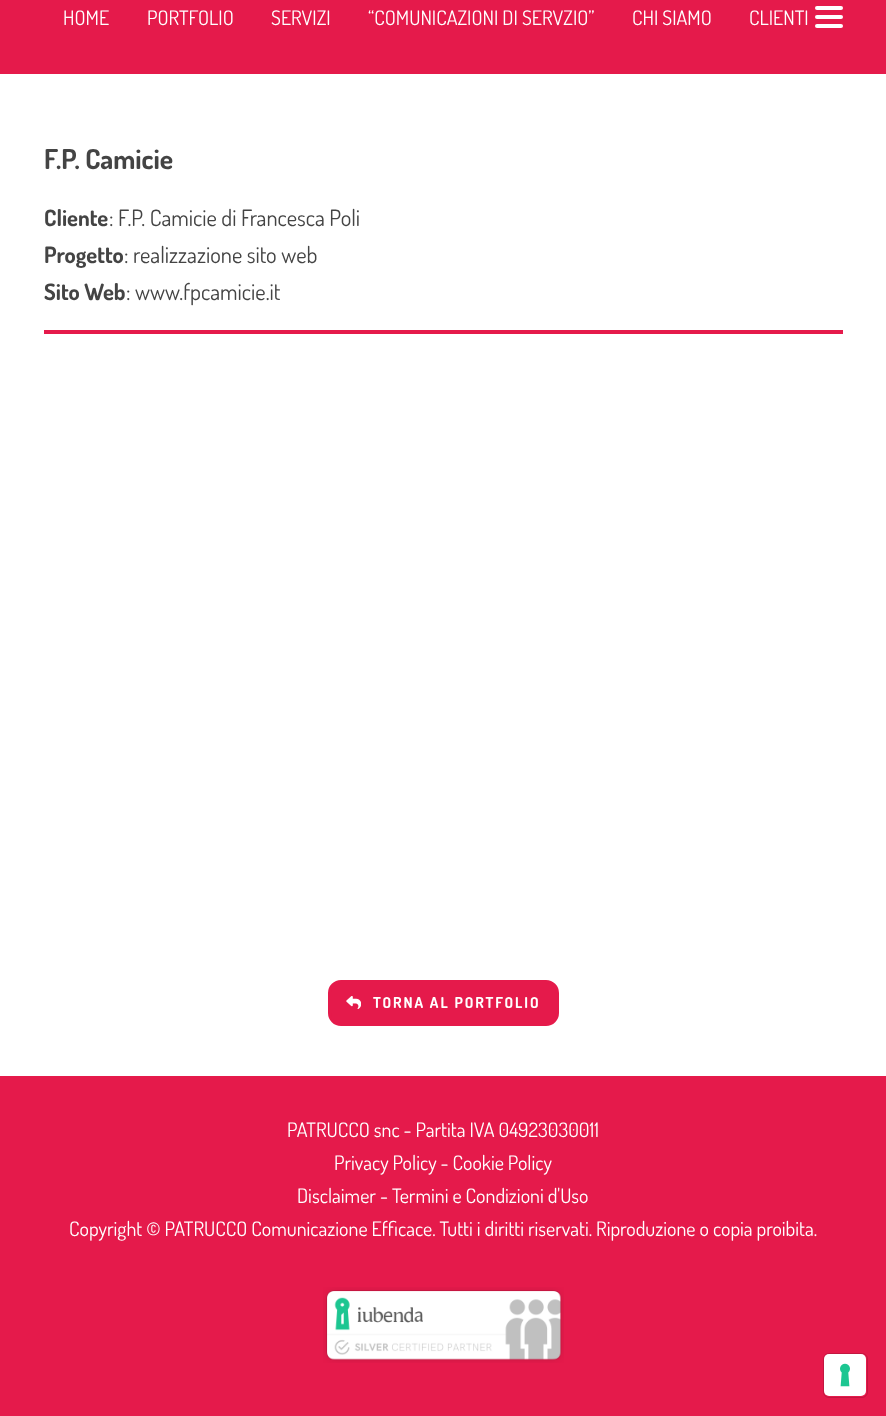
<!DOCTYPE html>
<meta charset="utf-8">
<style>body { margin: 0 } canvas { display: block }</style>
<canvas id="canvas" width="886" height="1416"></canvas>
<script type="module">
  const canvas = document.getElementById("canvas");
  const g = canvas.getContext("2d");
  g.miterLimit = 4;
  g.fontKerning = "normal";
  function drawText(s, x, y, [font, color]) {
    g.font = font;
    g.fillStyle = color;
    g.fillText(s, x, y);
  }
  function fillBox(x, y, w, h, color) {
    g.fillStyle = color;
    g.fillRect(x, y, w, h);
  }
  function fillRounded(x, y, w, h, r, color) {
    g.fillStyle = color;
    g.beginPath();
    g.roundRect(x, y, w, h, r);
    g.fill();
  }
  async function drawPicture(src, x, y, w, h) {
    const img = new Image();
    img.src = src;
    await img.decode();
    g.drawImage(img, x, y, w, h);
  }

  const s1 = ["20px Dosis", "#FFFFFF"];
  const s2 = ["bold 27.5px Dosis", "#444444"];
  const s3 = ["bold 22.5px Dosis", "#444444"];
  const s4 = ["22.5px Dosis", "#444444"];
  const s5 = ["bold 15px Dosis", "#FFFFFF"];

  fillBox(0, 0, 886, 1416, "#FFFFFF");
  fillBox(0, 0, 886, 74, "#E51A4B");
  drawText("HOME", 63, 25, s1);
  drawText("PORTFOLIO", 147, 25, s1);
  drawText("SERVIZI", 271, 25, s1);
  drawText("“COMUNICAZIONI DI SERVZIO”", 368, 25, s1);
  drawText("CHI SIAMO", 632, 25, s1);
  drawText("CLIENTI", 749, 25, s1);
  fillRounded(815, 15, 28, 4, 2, "#FFFFFF");
  fillRounded(815, 6, 28, 4, 2, "#FFFFFF");
  fillRounded(815, 24, 28, 4, 2, "#FFFFFF");
  drawText("F.P. Camicie", 44, 169, s2);
  drawText("Cliente", 44, 226, s3);
  drawText(": F.P. Camicie di Francesca Poli", 109, 226, s4);
  drawText("Progetto", 44, 263, s3);
  drawText(": realizzazione sito web", 124, 263, s4);
  drawText("Sito Web", 44, 300, s3);
  drawText(": www.fpcamicie.it", 126, 300, s4);
  fillBox(44, 330, 799, 4, "#E51A4B");
  g.beginPath();
  g.roundRect(329.5, 981.5, 228, 43, 11.5);
  g.fill();
  g.strokeStyle = "#E51A4B";
  g.lineWidth = 3;
  g.stroke();
  await drawPicture("pic1.png", 346, 996, 15, 13);
  g.letterSpacing = "1.9px";
  drawText("TORNA AL PORTFOLIO", 373, 1008, s5);
  fillBox(0, 1076, 886, 340, "#E51A4B");
  g.letterSpacing = "0px";
  drawText("PATRUCCO snc - Partita IVA 04923030011", 287, 1137, s1);
  drawText("Privacy Policy - Cookie Policy", 334, 1170, s1);
  drawText("Disclaimer - Termini e Condizioni d'Uso", 297, 1203, s1);
  drawText("Copyright © PATRUCCO Comunicazione Efficace. Tutti i diritti riservati. Riproduzione o copia proibita.", 69, 1236, s1);
  await drawPicture("pic2.png", 323, 1287, 241, 76);
  g.beginPath();
  g.roundRect(823.5, 1353.5, 44, 44, 5.5);
  g.strokeStyle = "#C31640";
  g.lineWidth = 1;
  g.stroke();
  fillRounded(824, 1354, 42, 42, 5, "#FFFFFF");
  await drawPicture("pic3.png", 840, 1363, 10, 24);
</script>
